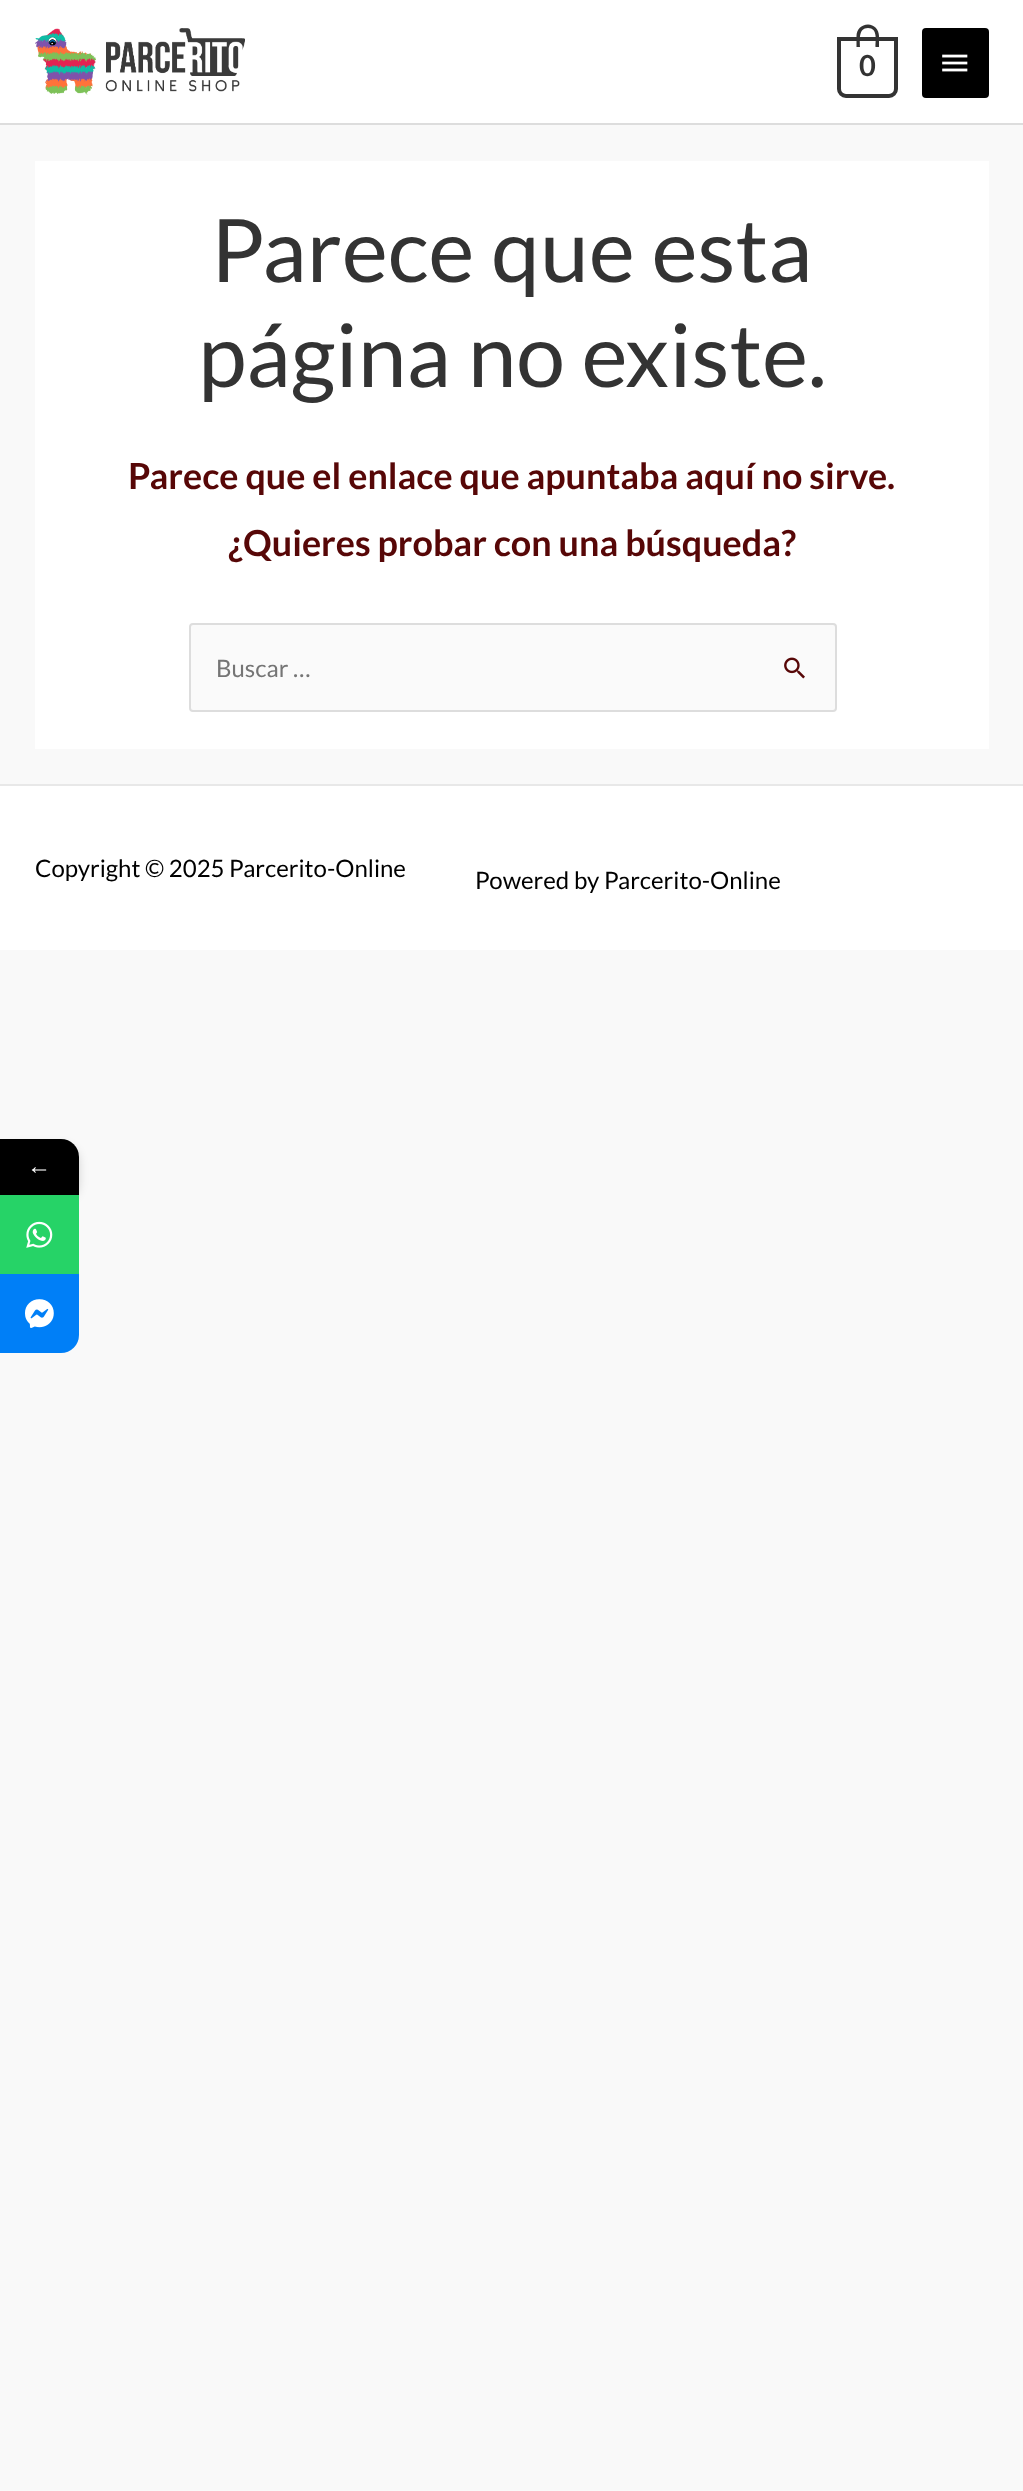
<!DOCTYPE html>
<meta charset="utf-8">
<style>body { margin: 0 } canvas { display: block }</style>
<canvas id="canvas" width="1023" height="2491"></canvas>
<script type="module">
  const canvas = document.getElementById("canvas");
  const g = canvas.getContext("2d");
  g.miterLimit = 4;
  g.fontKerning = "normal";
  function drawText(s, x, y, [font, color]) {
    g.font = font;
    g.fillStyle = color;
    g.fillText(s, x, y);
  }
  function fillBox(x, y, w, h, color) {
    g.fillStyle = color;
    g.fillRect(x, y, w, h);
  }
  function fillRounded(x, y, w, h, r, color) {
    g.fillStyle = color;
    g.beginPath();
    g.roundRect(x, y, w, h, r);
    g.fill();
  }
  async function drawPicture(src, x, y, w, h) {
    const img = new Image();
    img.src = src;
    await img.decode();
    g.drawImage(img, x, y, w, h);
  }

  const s1 = ["bold 29px Lato", "#333333"];
  const s2 = ["87.5px Lato", "#333333"];
  const s3 = ["bold 35.9px Lato", "#570707"];
  const s4 = ["24px Lato", "#757575"];
  const s5 = ["24px Lato", "#000000"];
  const s6 = ["24px Liberation Serif", "#FFFFFF"];

  fillBox(0, 0, 1023, 2491, "#F9F9F9");
  fillBox(0, 0, 1023, 123, "#FFFFFF");
  fillBox(0, 123, 1023, 2, "#DDDDDD");
  await drawPicture("pic1.png", 35, 28, 210, 67);
  g.beginPath();
  g.roundRect(839, 39, 57, 57, [0, 0, 7, 7]);
  g.strokeStyle = "#333333";
  g.lineWidth = 4;
  g.stroke();
  g.fillStyle = "#333333";
  g.beginPath();
  g.moveTo(868, 24.5);
  g.bezierCurveTo(874, 24.5, 879, 29.5, 879, 36);
  g.lineTo(879, 47);
  g.lineTo(856.5, 47);
  g.lineTo(856.5, 36);
  g.bezierCurveTo(856.5, 29.5, 861.5, 24.5, 868, 24.5);
  g.closePath();
  g.moveTo(868, 28);
  g.bezierCurveTo(878, 28, 875.5, 40.5, 875.5, 47);
  g.lineTo(860, 47);
  g.bezierCurveTo(860, 40.5, 858, 28, 868, 28);
  g.closePath();
  g.fill("evenodd");
  drawText("0", 859, 76, s1);
  fillRounded(922, 28, 67, 70, 4, "#000000");
  await drawPicture("pic2.png", 942, 54, 26, 18);
  fillBox(35, 161, 954, 588, "#FFFFFF");
  drawText("Parece que esta", 211, 282, s2);
  drawText("página no existe.", 198, 387, s2);
  drawText("Parece que el enlace que apuntaba aquí no sirve.", 128, 489, s3);
  drawText("¿Quieres probar con una búsqueda?", 228, 556, s3);
  g.fillStyle = "#FAFAFA";
  g.beginPath();
  g.roundRect(190, 624, 646, 87, 3);
  g.fill();
  g.strokeStyle = "#DDDDDD";
  g.lineWidth = 2;
  g.stroke();
  drawText("Buscar …", 216, 677, s4);
  await drawPicture("pic3.png", 784, 657, 21, 22);
  fillBox(0, 784, 1023, 2, "#E8E8E8");
  fillBox(0, 786, 1023, 164, "#FFFFFF");
  drawText("Copyright © 2025 Parcerito-Online", 35, 877, s5);
  drawText("Powered by Parcerito-Online", 475, 889, s5);
  g.fillStyle = "rgba(0, 0, 0, 0.16)";
  g.filter = "blur(5px)";
  g.beginPath();
  g.roundRect(0, 1145, 79, 56, 18);
  g.fill();
  g.filter = "none";
  g.fillStyle = "#000000";
  g.beginPath();
  g.roundRect(0, 1139, 79, 56, [0, 18, 0, 0]);
  g.fill();
  drawText("←", 27, 1174, s6);
  fillBox(0, 1195, 79, 79, "#26D367");
  await drawPicture("pic4.png", 26, 1221, 27, 27);
  g.fillStyle = "#007FF7";
  g.beginPath();
  g.roundRect(0, 1274, 79, 79, [0, 0, 18, 0]);
  g.fill();
  await drawPicture("pic5.png", 25, 1299, 29, 29);
</script>
